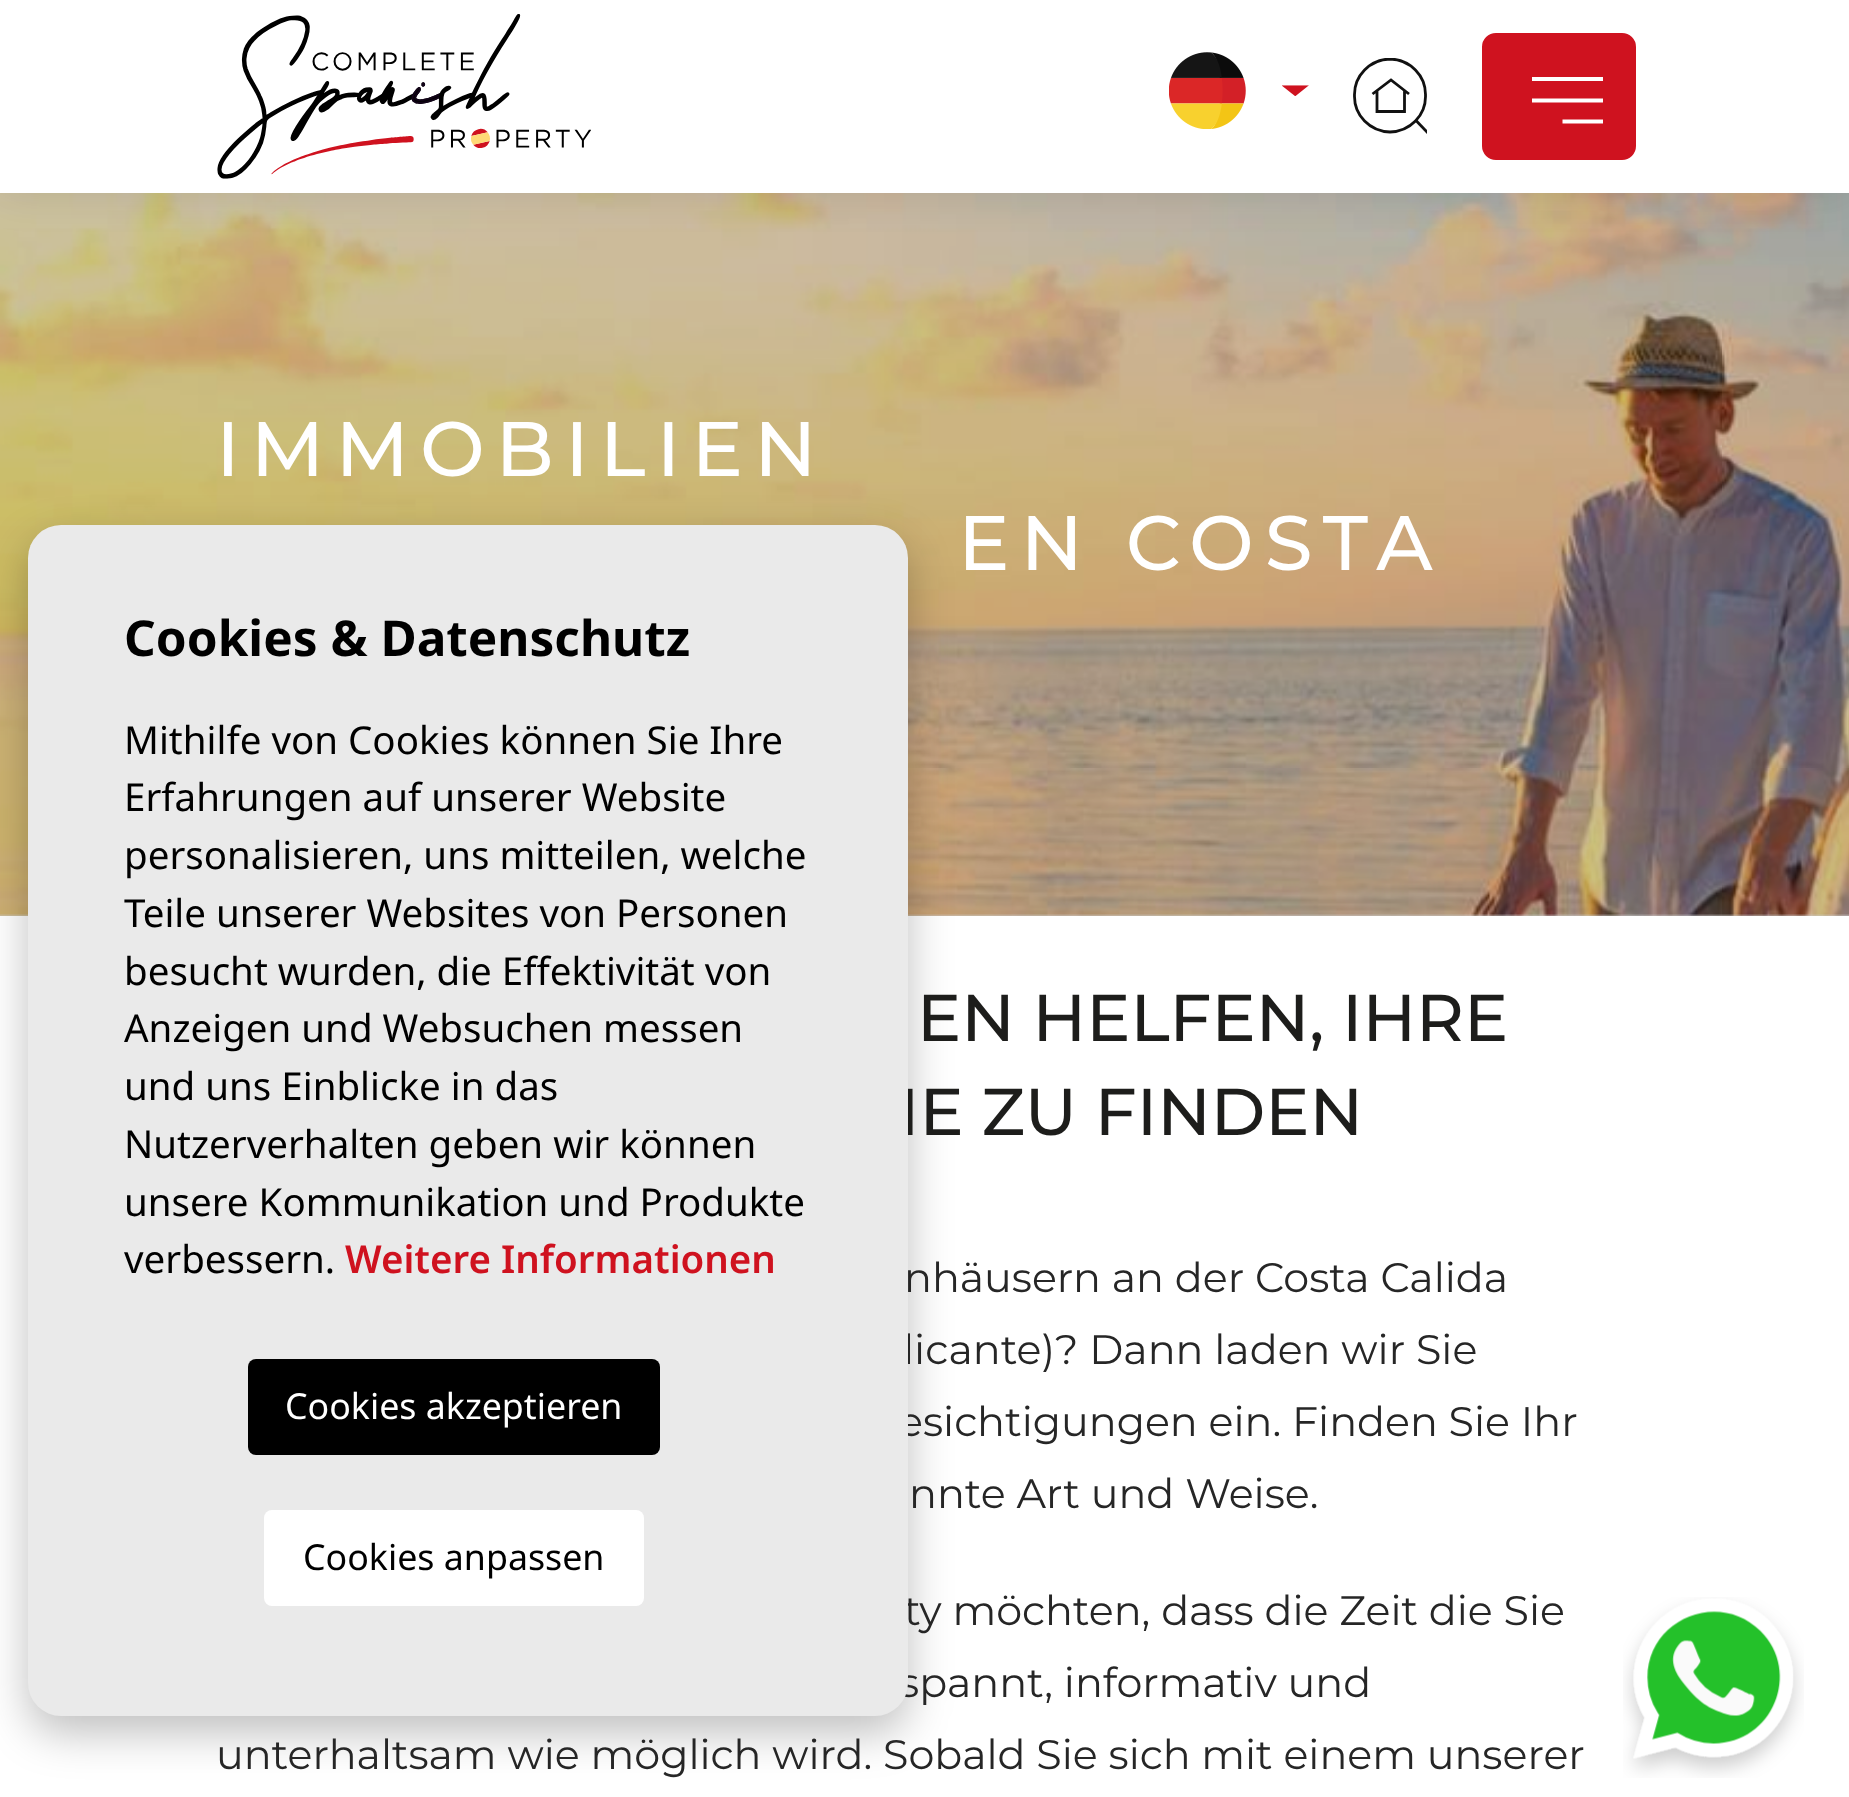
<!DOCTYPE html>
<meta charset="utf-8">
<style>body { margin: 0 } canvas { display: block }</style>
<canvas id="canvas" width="1849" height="1797"></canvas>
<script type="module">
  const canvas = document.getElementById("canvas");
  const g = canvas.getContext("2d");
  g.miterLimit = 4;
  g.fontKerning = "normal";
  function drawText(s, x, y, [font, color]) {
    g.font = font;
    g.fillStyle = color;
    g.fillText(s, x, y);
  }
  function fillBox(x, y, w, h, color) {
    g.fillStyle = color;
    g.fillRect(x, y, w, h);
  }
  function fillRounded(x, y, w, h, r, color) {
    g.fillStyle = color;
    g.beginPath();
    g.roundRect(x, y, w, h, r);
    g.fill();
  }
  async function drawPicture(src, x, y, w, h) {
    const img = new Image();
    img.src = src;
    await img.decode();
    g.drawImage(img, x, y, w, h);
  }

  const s1 = ["500 77px Montserrat", "#FFFFFF"];
  const s2 = ["500 66px Montserrat", "#1D1D1B"];
  const s3 = ["41.25px Montserrat", "#262626"];
  const s4 = ["bold 49.5px Noto Sans", "#000000"];
  const s5 = ["38.5px Noto Sans", "#000000"];
  const s6 = ["600 38.5px Noto Sans", "#CF121F"];
  const s7 = ["35.75px Noto Sans", "#FFFFFF"];
  const s8 = ["35.75px Noto Sans", "#000000"];

  fillBox(0, 0, 1849, 1797, "#FFFFFF");
  fillBox(0, 914, 1849, 2, "#CCCCCC");
  await drawPicture("pic4.png", 0, 193, 1849, 723);
  g.fillStyle = "rgba(0, 0, 0, 0.1)";
  g.filter = "blur(20.5px)";
  g.beginPath();
  g.rect(0, 0, 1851, 193);
  g.fill();
  g.filter = "none";
  fillBox(0, 0, 1849, 193, "#FFFFFF");
  await drawPicture("pic1.png", 217, 14, 374, 165);
  await drawPicture("pic2.png", 1169, 52, 77, 77);
  await drawPicture("pic3.png", 1282, 85, 27, 11);
  g.save();
  g.beginPath();
  g.rect(1353, 58, 74, 77);
  g.clip();
  g.beginPath();
  g.moveTo(1425.5, 95.5);
  g.bezierCurveTo(1426, 115.5, 1410, 131.5, 1390, 132);
  g.bezierCurveTo(1370, 131.5, 1354, 115.5, 1354.5, 95.5);
  g.bezierCurveTo(1354, 75.5, 1370, 59.5, 1390, 59);
  g.bezierCurveTo(1410, 59.5, 1426, 75.5, 1425.5, 95.5);
  g.closePath();
  g.strokeStyle = "#111111";
  g.lineWidth = 2.8;
  g.stroke();
  g.restore();
  g.beginPath();
  g.moveTo(1404.5, 90.5);
  g.lineTo(1404.5, 111.5);
  g.lineTo(1377, 111.5);
  g.lineTo(1377, 90.5);
  g.moveTo(1409, 94);
  g.lineTo(1391, 80);
  g.lineTo(1372.5, 94);
  g.strokeStyle = "#111111";
  g.lineWidth = 2.8;
  g.stroke();
  g.save();
  g.beginPath();
  g.rect(1353, 58, 74, 77);
  g.clip();
  g.beginPath();
  g.moveTo(1429, 134);
  g.lineTo(1415.5, 120);
  g.lineJoin = "round";
  g.stroke();
  g.restore();
  g.fillStyle = "#CF121F";
  g.beginPath();
  g.roundRect(1483.5, 34.5, 151, 124, 12.5);
  g.fill();
  g.strokeStyle = "#CF121F";
  g.lineWidth = 3;
  g.stroke();
  fillBox(1532, 77, 71, 4, "#FFFFFF");
  g.save();
  g.beginPath();
  g.rect(1532, 77, 71, 47);
  g.clip();
  g.beginPath();
  g.moveTo(1532, 100.5);
  g.lineTo(1603.5, 100.5);
  g.strokeStyle = "#FFFFFF";
  g.lineWidth = 4.1;
  g.stroke();
  g.restore();
  g.beginPath();
  g.moveTo(1562.5, 121.5);
  g.lineTo(1603, 121.5);
  g.strokeStyle = "#FFFFFF";
  g.lineWidth = 4.1;
  g.stroke();
  g.letterSpacing = "11px";
  drawText("IMMOBILIEN", 216, 476, s1);
  drawText("EN COSTA", 958, 570, s1);
  g.fillStyle = "rgba(0, 0, 0, 0.25)";
  g.filter = "blur(22px)";
  g.beginPath();
  g.roundRect(28, 542, 880, 1191, 33);
  g.fill();
  g.filter = "none";
  g.letterSpacing = "0px";
  drawText("IE ZU FINDEN", 899, 1135, s2);
  drawText("licante)? Dann laden wir Sie", 903, 1364, s3);
  drawText("esichtigungen ein. Finden Sie Ihr", 898, 1436, s3);
  drawText("ty möchten, dass die Zeit die Sie", 904, 1625, s3);
  drawText("spannt, informativ und", 899, 1697, s3);
  fillRounded(28, 525, 880, 1191, 33, "#EAEAEA");
  drawText("Cookies & Datenschutz", 124, 656, s4);
  drawText("Mithilfe von Cookies können Sie Ihre", 124, 754, s5);
  drawText("Erfahrungen auf unserer Website", 124, 811, s5);
  drawText("personalisieren, uns mitteilen, welche", 124, 869, s5);
  drawText("Teile unserer Websites von Personen", 124, 927, s5);
  drawText("besucht wurden, die Effektivität von", 124, 985, s5);
  drawText("Anzeigen und Websuchen messen", 124, 1042, s5);
  drawText("und uns Einblicke in das", 124, 1100, s5);
  drawText("Nutzerverhalten geben wir können", 124, 1158, s5);
  drawText("unsere Kommunikation und Produkte", 124, 1216, s5);
  drawText("verbessern.", 124, 1273, s5);
  drawText("Weitere Informationen", 345, 1273, s6);
  fillRounded(248, 1359, 412, 96, 8, "#000000");
  drawText("Cookies akzeptieren", 285, 1419, s7);
  fillRounded(264, 1510, 380, 96, 8, "#FFFFFF");
  drawText("Cookies anpassen", 303, 1570, s8);
  drawText("EN HELFEN, IHRE", 917, 1041, s2);
  drawText("nhäusern an der Costa Calida", 904, 1292, s3);
  drawText("nnte Art und Weise.", 909, 1508, s3);
  drawText("unterhaltsam wie möglich wird. Sobald Sie sich mit einem unserer", 216, 1769, s3);
  await drawPicture("pic5.png", 1623, 1597, 181, 181);
</script>
